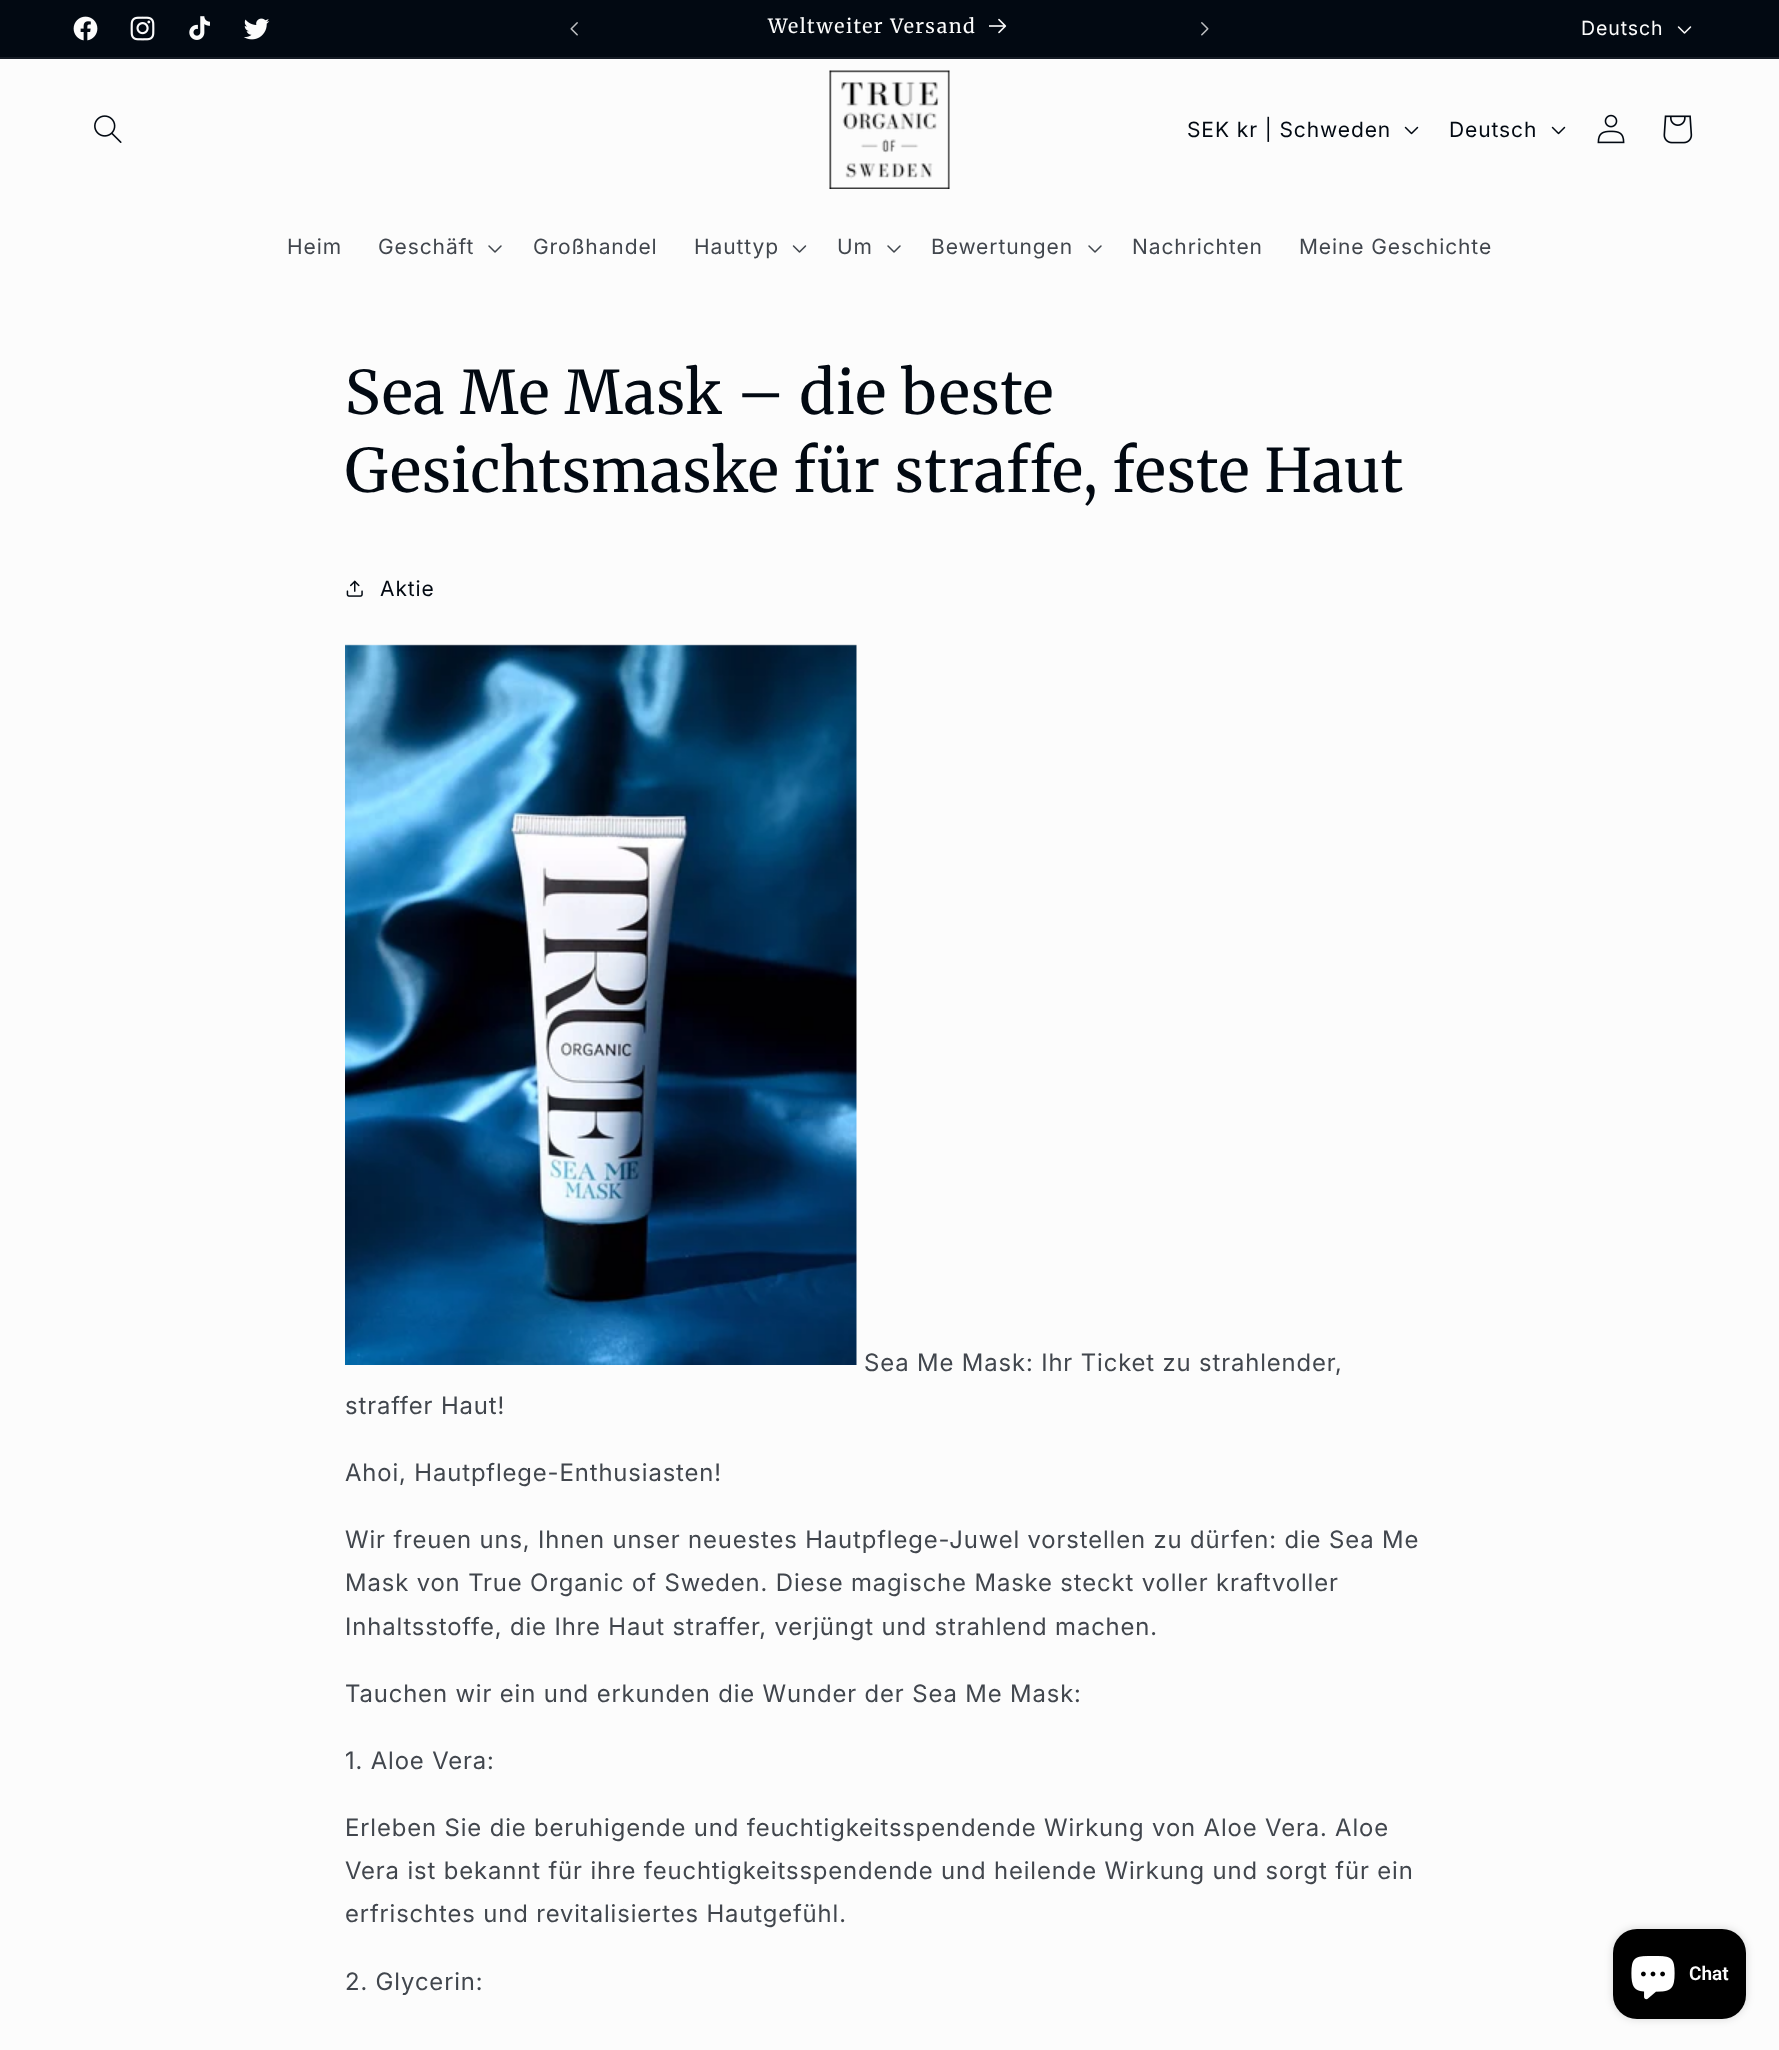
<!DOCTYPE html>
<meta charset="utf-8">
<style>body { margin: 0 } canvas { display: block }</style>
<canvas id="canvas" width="1779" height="2050"></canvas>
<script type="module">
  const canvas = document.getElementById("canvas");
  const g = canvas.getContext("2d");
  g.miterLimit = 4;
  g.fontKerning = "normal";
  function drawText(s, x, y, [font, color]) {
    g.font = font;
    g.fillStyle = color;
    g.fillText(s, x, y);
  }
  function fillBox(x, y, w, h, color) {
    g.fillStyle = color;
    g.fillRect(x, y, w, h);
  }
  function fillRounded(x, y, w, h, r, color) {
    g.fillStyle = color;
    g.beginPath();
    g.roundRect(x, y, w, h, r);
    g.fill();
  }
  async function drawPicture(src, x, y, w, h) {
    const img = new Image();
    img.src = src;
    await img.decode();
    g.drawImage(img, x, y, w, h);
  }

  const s1 = ["19.5px 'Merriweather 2'", "#FCFCFC"];
  const s2 = ["19.5px Inter", "#FCFCFC"];
  const s3 = ["21px Inter", "#020912"];
  const s4 = ["21px Inter", "#41464D"];
  const s5 = ["60px Merriweather", "#020912"];
  const s6 = ["24px 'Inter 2'", "#41464D"];
  const s7 = ["600 19px Roboto", "#FCFCFC"];

  fillBox(0, 0, 1779, 2050, "#FCFCFC");
  fillBox(0, 0, 1779, 57, "#020912");
  fillBox(0, 57, 1779, 2, "#161C25");
  await drawPicture("pic1.png", 73, 16, 25, 25);
  await drawPicture("pic2.png", 130, 16, 25, 25);
  await drawPicture("pic3.png", 189, 16, 21, 24);
  await drawPicture("pic4.png", 243, 18, 27, 22);
  await drawPicture("pic5.png", 570, 22, 8, 14);
  g.letterSpacing = "1.5px";
  drawText("Weltweiter Versand", 768, 33, s1);
  await drawPicture("pic6.png", 989, 18, 18, 16);
  await drawPicture("pic7.png", 1201, 22, 8, 14);
  g.letterSpacing = "0.9px";
  drawText("Deutsch", 1581, 35, s2);
  await drawPicture("pic8.png", 1677, 26, 15, 8);
  await drawPicture("pic9.png", 94, 115, 28, 28);
  await drawPicture("pic10.png", 829, 70, 121, 119);
  drawText("SEK kr | Schweden", 1187, 137, s3);
  await drawPicture("pic11.png", 1404, 126, 15, 9);
  drawText("Deutsch", 1449, 137, s3);
  await drawPicture("pic11.png", 1551, 126, 15, 9);
  await drawPicture("pic12.png", 1597, 114, 28, 30);
  await drawPicture("pic13.png", 1663, 115, 30, 29);
  drawText("Heim", 287, 254, s4);
  drawText("Geschäft", 378, 254, s4);
  await drawPicture("pic14.png", 488, 245, 14, 8);
  drawText("Großhandel", 533, 254, s4);
  drawText("Hauttyp", 694, 254, s4);
  await drawPicture("pic15.png", 792, 245, 15, 8);
  drawText("Um", 837, 254, s4);
  await drawPicture("pic14.png", 887, 245, 14, 8);
  drawText("Bewertungen", 931, 254, s4);
  await drawPicture("pic14.png", 1088, 245, 14, 8);
  drawText("Nachrichten", 1132, 254, s4);
  drawText("Meine Geschichte", 1299, 254, s4);
  drawText("Sea Me Mask – die beste", 345, 414, s5);
  drawText("Gesichtsmaske für straffe, feste Haut", 345, 492, s5);
  await drawPicture("pic16.png", 346, 580, 17, 17);
  drawText("Aktie", 380, 596, s3);
  await drawPicture("pic17.png", 345, 644, 512, 721);
  drawText("Sea Me Mask: Ihr Ticket zu strahlender,", 864, 1371, s6);
  drawText("straffer Haut!", 345, 1414, s6);
  drawText("Ahoi, Hautpflege-Enthusiasten!", 345, 1481, s6);
  drawText("Wir freuen uns, Ihnen unser neuestes Hautpflege-Juwel vorstellen zu dürfen: die Sea Me", 345, 1548, s6);
  drawText("Mask von True Organic of Sweden. Diese magische Maske steckt voller kraftvoller", 345, 1591, s6);
  drawText("Inhaltsstoffe, die Ihre Haut straffer, verjüngt und strahlend machen.", 345, 1635, s6);
  drawText("Tauchen wir ein und erkunden die Wunder der Sea Me Mask:", 345, 1702, s6);
  drawText("1. Aloe Vera:", 345, 1769, s6);
  drawText("Erleben Sie die beruhigende und feuchtigkeitsspendende Wirkung von Aloe Vera. Aloe", 345, 1836, s6);
  drawText("Vera ist bekannt für ihre feuchtigkeitsspendende und heilende Wirkung und sorgt für ein", 345, 1879, s6);
  drawText("erfrischtes und revitalisiertes Hautgefühl.", 345, 1922, s6);
  drawText("2. Glycerin:", 345, 1990, s6);
  g.fillStyle = "rgba(0, 0, 0, 0.15)";
  g.filter = "blur(4px)";
  g.beginPath();
  g.roundRect(1613, 1929, 133, 90, 24);
  g.fill();
  g.filter = "none";
  fillRounded(1613, 1929, 133, 90, 24, "#000000");
  await drawPicture("pic18.png", 1631, 1956, 44, 44);
  g.letterSpacing = "0px";
  drawText("Chat", 1689, 1980, s7);
</script>
